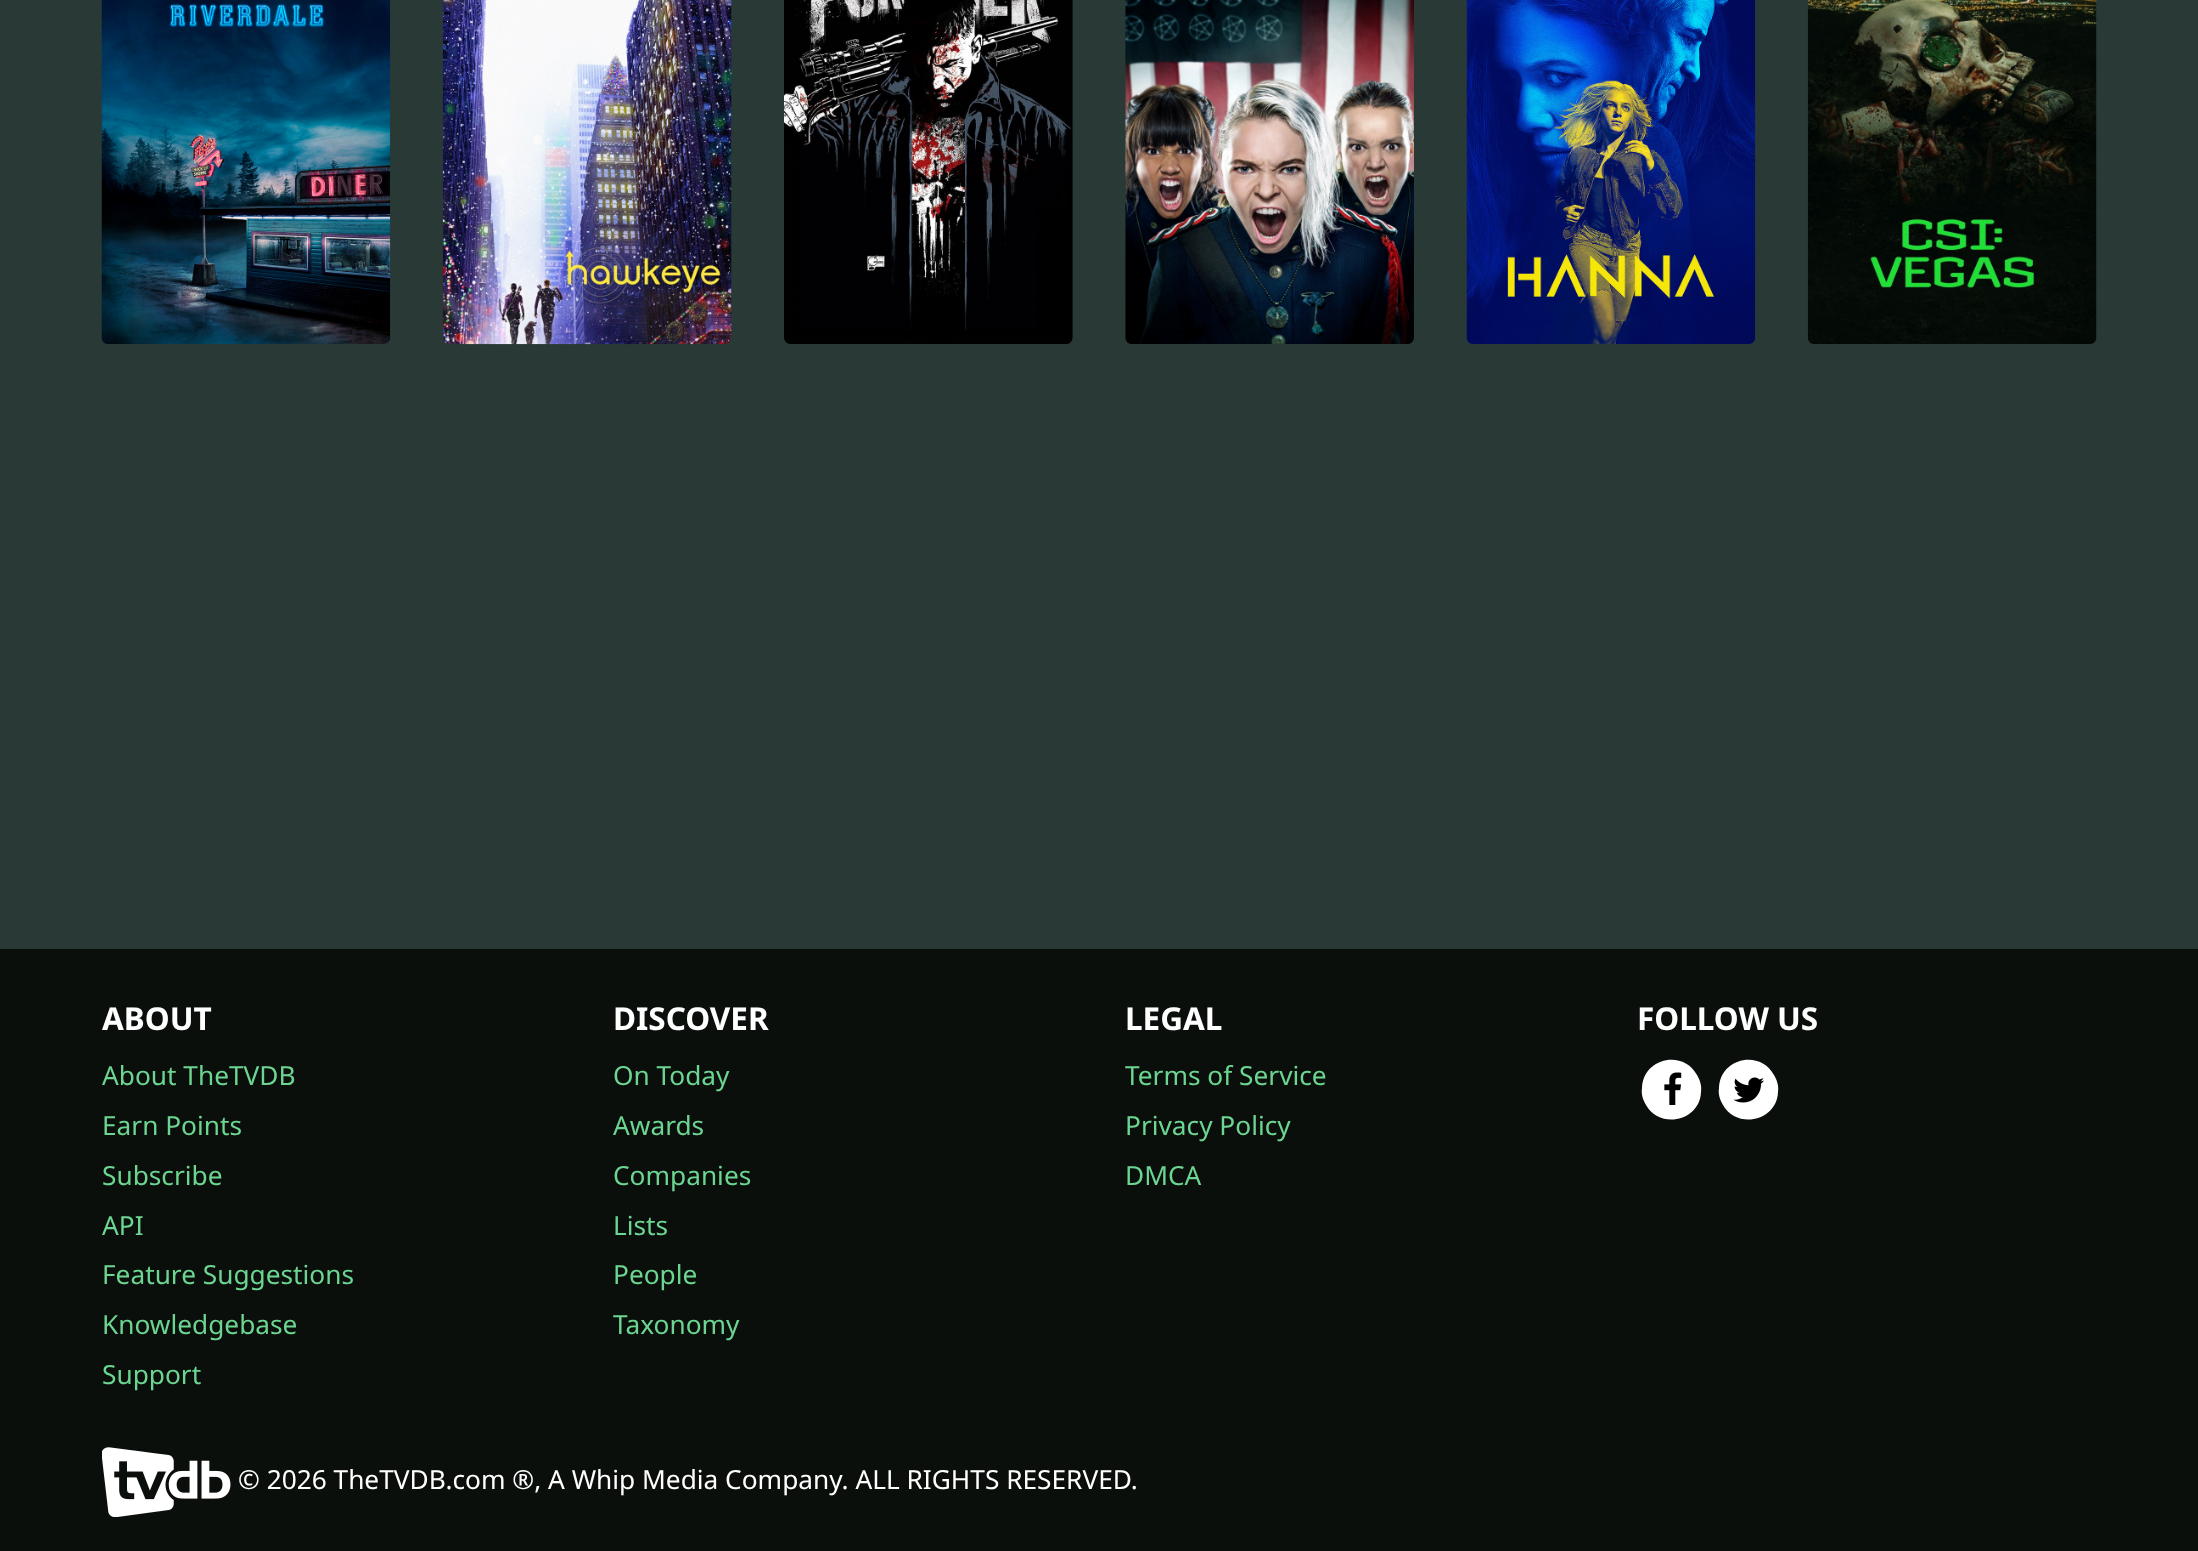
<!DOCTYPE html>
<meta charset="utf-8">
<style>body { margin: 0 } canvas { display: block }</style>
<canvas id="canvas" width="2198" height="1551"></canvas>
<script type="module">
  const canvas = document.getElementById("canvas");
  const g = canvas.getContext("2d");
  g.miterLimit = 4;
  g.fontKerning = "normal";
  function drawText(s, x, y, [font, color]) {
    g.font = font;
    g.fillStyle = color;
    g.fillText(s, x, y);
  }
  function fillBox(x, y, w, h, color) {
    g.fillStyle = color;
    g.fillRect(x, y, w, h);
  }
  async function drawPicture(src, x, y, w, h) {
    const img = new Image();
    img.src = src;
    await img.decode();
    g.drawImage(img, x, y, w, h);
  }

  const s1 = ["bold 31.5px Noto Sans", "#FFFFFF"];
  const s2 = ["26.25px Noto Sans", "#6CD591"];
  const s3 = ["26.25px Noto Sans", "#FFFFFF"];

  fillBox(0, 0, 2198, 1551, "#293A36");
  await drawPicture("pic1.png", 101, 0, 290, 344);
  await drawPicture("pic2.png", 442, 0, 290, 345);
  await drawPicture("pic3.png", 784, 0, 289, 344);
  await drawPicture("pic4.png", 1125, 0, 289, 344);
  await drawPicture("pic5.png", 1466, 0, 290, 344);
  await drawPicture("pic6.png", 1807, 0, 290, 344);
  fillBox(0, 949, 2198, 602, "#0B0F0C");
  drawText("ABOUT", 102, 1030, s1);
  drawText("About TheTVDB", 102, 1085, s2);
  drawText("Earn Points", 102, 1135, s2);
  drawText("Subscribe", 102, 1185, s2);
  drawText("API", 102, 1235, s2);
  drawText("Feature Suggestions", 102, 1284, s2);
  drawText("Knowledgebase", 102, 1334, s2);
  drawText("Support", 102, 1384, s2);
  drawText("DISCOVER", 613, 1030, s1);
  drawText("On Today", 613, 1085, s2);
  drawText("Awards", 613, 1135, s2);
  drawText("Companies", 613, 1185, s2);
  drawText("Lists", 613, 1235, s2);
  drawText("People", 613, 1284, s2);
  drawText("Taxonomy", 613, 1334, s2);
  drawText("LEGAL", 1125, 1030, s1);
  drawText("Terms of Service", 1125, 1085, s2);
  drawText("Privacy Policy", 1125, 1135, s2);
  drawText("DMCA", 1125, 1185, s2);
  drawText("FOLLOW US", 1637, 1030, s1);
  g.beginPath();
  g.moveTo(1697, 1075);
  g.bezierCurveTo(1700, 1080, 1702, 1086, 1701, 1092);
  g.bezierCurveTo(1700, 1121, 1660, 1130, 1646, 1105);
  g.bezierCurveTo(1643, 1100, 1641, 1094, 1642, 1088);
  g.bezierCurveTo(1643, 1058, 1683, 1049, 1697, 1075);
  g.closePath();
  g.fill();
  await drawPicture("pic7.png", 1664, 1072, 18, 33);
  g.beginPath();
  g.moveTo(1774, 1075);
  g.bezierCurveTo(1777, 1080, 1779, 1086, 1778, 1092);
  g.bezierCurveTo(1777, 1121, 1737, 1130, 1723, 1105);
  g.bezierCurveTo(1720, 1100, 1718, 1094, 1719, 1088);
  g.bezierCurveTo(1720, 1058, 1760, 1049, 1774, 1075);
  g.closePath();
  g.fill();
  await drawPicture("pic8.png", 1733, 1077, 31, 26);
  await drawPicture("pic9.png", 102, 1447, 129, 70);
  drawText("© 2026 TheTVDB.com ®, A Whip Media Company. ALL RIGHTS RESERVED.", 238, 1489, s3);
</script>
